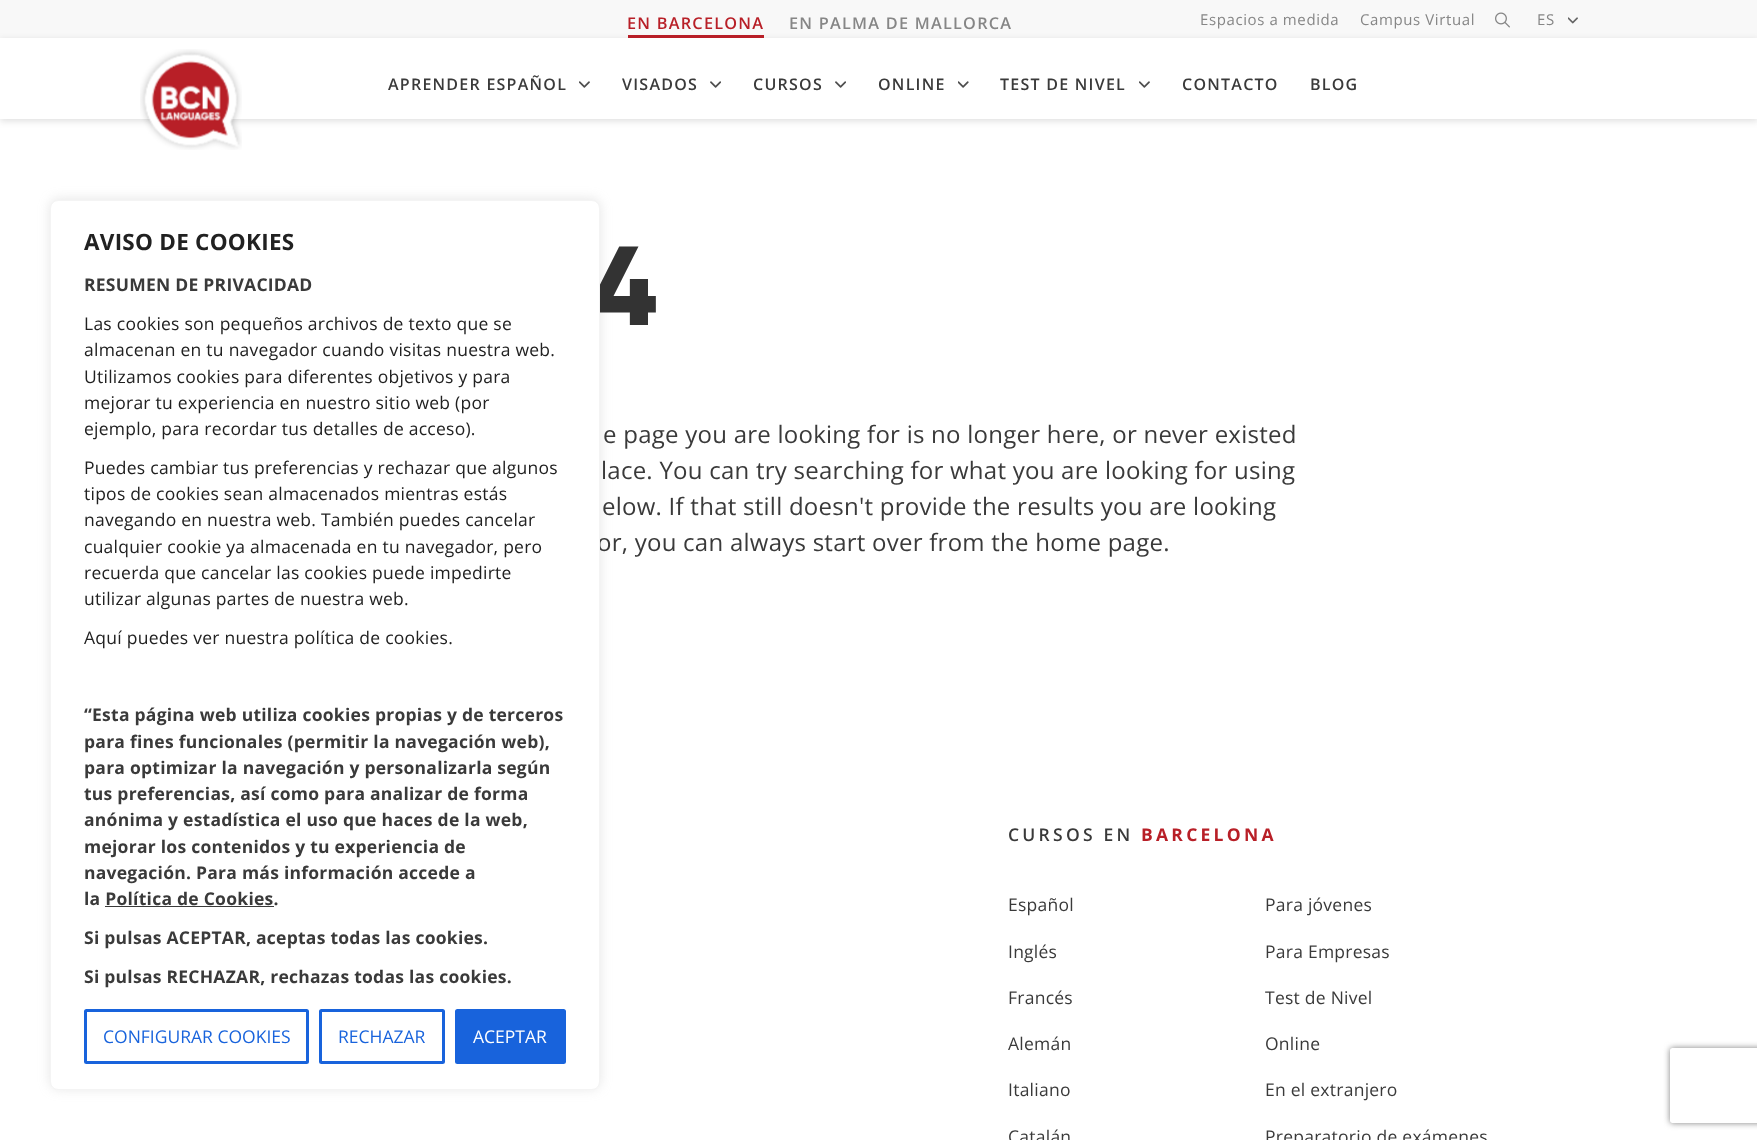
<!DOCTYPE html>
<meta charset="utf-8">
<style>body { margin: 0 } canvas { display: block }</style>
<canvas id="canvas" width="1757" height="1140"></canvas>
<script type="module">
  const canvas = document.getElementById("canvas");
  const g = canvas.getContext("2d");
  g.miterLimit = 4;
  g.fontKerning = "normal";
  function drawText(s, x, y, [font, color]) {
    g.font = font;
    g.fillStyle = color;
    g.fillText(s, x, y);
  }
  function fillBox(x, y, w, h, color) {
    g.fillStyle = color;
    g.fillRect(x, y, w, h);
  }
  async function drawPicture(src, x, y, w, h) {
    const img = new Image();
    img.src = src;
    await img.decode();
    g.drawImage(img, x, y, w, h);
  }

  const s1 = ["800 112px Gilroy", "#333333"];
  const s2 = ["24px Open Sans", "#3A3A3A"];
  const s3 = ["bold 22.5px Open Sans", "#212121"];
  const s4 = ["bold 17.5px Open Sans", "#3A3A3A"];
  const s5 = ["17.5px Open Sans", "#212121"];
  const s6 = ["17.5px Open Sans", "#1863DC"];
  const s7 = ["17.5px Open Sans", "#FFFFFF"];
  const s8 = ["600 16.25px Open Sans", "#B81F27"];
  const s9 = ["600 16.25px Open Sans", "#868686"];
  const s10 = ["15px Open Sans", "#868686"];
  const s11 = ["600 16px Open Sans", "#3A3A3A"];
  const s12 = ["600 17.5px Open Sans", "#3A3A3A"];
  const s13 = ["bold 17.5px Open Sans", "#B81F27"];
  const s14 = ["17.5px Open Sans", "#3A3A3A"];

  fillBox(0, 0, 1757, 1140, "#FFFFFF");
  g.fillStyle = "rgba(172, 171, 171, 0.3)";
  g.filter = "blur(6px)";
  g.beginPath();
  g.roundRect(50, 199, 550, 890, 8);
  g.fill();
  g.filter = "none";
  g.letterSpacing = "-2px";
  drawText("4", 592, 325, s1);
  g.letterSpacing = "0.25px";
  drawText("or, you can always start over from the home page.", 597, 551, s2);
  g.fillStyle = "#FFFFFF";
  g.beginPath();
  g.roundRect(50.5, 200.5, 549, 889, 7.5);
  g.fill();
  g.strokeStyle = "#F4F4F4";
  g.stroke();
  drawText("AVISO DE COOKIES", 84, 250, s3);
  drawText("RESUMEN DE PRIVACIDAD", 84, 291, s4);
  drawText("Las cookies son pequeños archivos de texto que se", 84, 330, s5);
  drawText("almacenan en tu navegador cuando visitas nuestra web.", 84, 356, s5);
  drawText("Utilizamos cookies para diferentes objetivos y para", 84, 383, s5);
  drawText("mejorar tu experiencia en nuestro sitio web (por", 84, 409, s5);
  drawText("ejemplo, para recordar tus detalles de acceso).", 84, 435, s5);
  drawText("Puedes cambiar tus preferencias y rechazar que algunos", 84, 474, s5);
  drawText("tipos de cookies sean almacenados mientras estás", 84, 500, s5);
  drawText("navegando en nuestra web. También puedes cancelar", 84, 526, s5);
  drawText("cualquier cookie ya almacenada en tu navegador, pero", 84, 553, s5);
  drawText("recuerda que cancelar las cookies puede impedirte", 84, 579, s5);
  drawText("utilizar algunas partes de nuestra web.", 84, 605, s5);
  drawText("Aquí puedes ver nuestra política de cookies.", 84, 644, s5);
  drawText("“Esta página web utiliza cookies propias y de terceros", 84, 721, s4);
  drawText("para fines funcionales (permitir la navegación web),", 84, 748, s4);
  drawText("para optimizar la navegación y personalizarla según", 84, 774, s4);
  drawText("tus preferencias, así como para analizar de forma", 84, 800, s4);
  drawText("anónima y estadística el uso que haces de la web,", 84, 826, s4);
  drawText("mejorar los contenidos y tu experiencia de", 84, 853, s4);
  drawText("navegación. Para más información accede a", 84, 879, s4);
  drawText("la Política de Cookies.", 84, 905, s4);
  fillBox(105, 906, 169, 1, "#3A3A3A");
  drawText("Si pulsas ACEPTAR, aceptas todas las cookies.", 84, 944, s4);
  drawText("Si pulsas RECHAZAR, rechazas todas las cookies.", 84, 983, s4);
  g.beginPath();
  g.roundRect(85.5, 1010.5, 222, 52, 1);
  g.strokeStyle = "#1863DC";
  g.lineWidth = 3;
  g.stroke();
  g.letterSpacing = "0px";
  drawText("CONFIGURAR COOKIES", 103, 1043, s6);
  g.beginPath();
  g.roundRect(320.5, 1010.5, 123, 52, 1);
  g.stroke();
  drawText("RECHAZAR", 338, 1043, s6);
  g.beginPath();
  g.roundRect(456.5, 1010.5, 108, 52, 1);
  g.fill();
  g.stroke();
  drawText("ACEPTAR", 473, 1043, s7);
  fillBox(0, 0, 1757, 38, "#F8F8F8");
  g.fillStyle = "rgba(0, 0, 0, 0.13)";
  g.filter = "blur(3.5px)";
  g.beginPath();
  g.rect(0, 40, 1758, 81);
  g.fill();
  g.filter = "none";
  g.letterSpacing = "1.25px";
  drawText("EN BARCELONA", 627, 29, s8);
  fillBox(628, 35, 136, 3, "#B81F27");
  drawText("EN PALMA DE MALLORCA", 789, 29, s9);
  g.letterSpacing = "0.6px";
  drawText("Espacios a medida", 1200, 25, s10);
  drawText("Campus Virtual", 1360, 25, s10);
  await drawPicture("pic1.png", 1495, 12, 15, 16);
  drawText("ES", 1537, 25, s10);
  await drawPicture("pic2.png", 1568, 17, 10, 7);
  fillBox(0, 38, 1757, 81, "#FFFFFF");
  await drawPicture("pic3.png", 140, 49, 102, 101);
  g.letterSpacing = "1.25px";
  drawText("APRENDER ESPAÑOL", 388, 90, s11);
  await drawPicture("pic4.png", 579, 81, 11, 7);
  drawText("VISADOS", 622, 90, s11);
  await drawPicture("pic5.png", 710, 81, 11, 7);
  drawText("CURSOS", 753, 90, s11);
  await drawPicture("pic5.png", 835, 81, 11, 7);
  drawText("ONLINE", 878, 90, s11);
  await drawPicture("pic6.png", 958, 81, 11, 7);
  drawText("TEST DE NIVEL", 1000, 90, s11);
  await drawPicture("pic4.png", 1139, 81, 11, 7);
  drawText("CONTACTO", 1182, 90, s11);
  drawText("BLOG", 1310, 90, s11);
  g.letterSpacing = "0.25px";
  drawText("e page you are looking for is no longer here, or never existed", 603, 443, s2);
  drawText("lace. You can try searching for what you are looking for using", 601, 479, s2);
  drawText("elow. If that still doesn't provide the results you are looking", 602, 515, s2);
  g.letterSpacing = "3.25px";
  drawText("CURSOS EN", 1008, 841, s12);
  drawText("BARCELONA", 1141, 841, s13);
  g.letterSpacing = "0.25px";
  drawText("Español", 1008, 911, s14);
  drawText("Inglés", 1008, 958, s14);
  drawText("Francés", 1008, 1004, s14);
  drawText("Alemán", 1008, 1050, s14);
  drawText("Italiano", 1008, 1096, s14);
  drawText("Catalán", 1008, 1143, s14);
  drawText("Para jóvenes", 1265, 911, s14);
  drawText("Para Empresas", 1265, 958, s14);
  drawText("Test de Nivel", 1265, 1004, s14);
  drawText("Online", 1265, 1050, s14);
  drawText("En el extranjero", 1265, 1096, s14);
  drawText("Preparatorio de exámenes", 1265, 1143, s14);
  g.save();
  g.beginPath();
  g.moveTo(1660, 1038);
  g.lineTo(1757, 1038);
  g.lineTo(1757, 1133);
  g.lineTo(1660, 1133);
  g.closePath();
  g.moveTo(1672.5, 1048);
  g.lineTo(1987.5, 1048);
  g.bezierCurveTo(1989, 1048, 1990, 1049, 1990, 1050.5);
  g.lineTo(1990, 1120.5);
  g.bezierCurveTo(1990, 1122, 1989, 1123, 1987.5, 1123);
  g.lineTo(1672.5, 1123);
  g.bezierCurveTo(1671, 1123, 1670, 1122, 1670, 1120.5);
  g.lineTo(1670, 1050.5);
  g.bezierCurveTo(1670, 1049, 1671, 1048, 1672.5, 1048);
  g.closePath();
  g.clip("evenodd");
  g.fillStyle = "#808080";
  g.filter = "blur(3px)";
  g.beginPath();
  g.roundRect(1670, 1048, 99, 75, 2.5);
  g.fill();
  g.filter = "none";
  g.restore();
</script>
